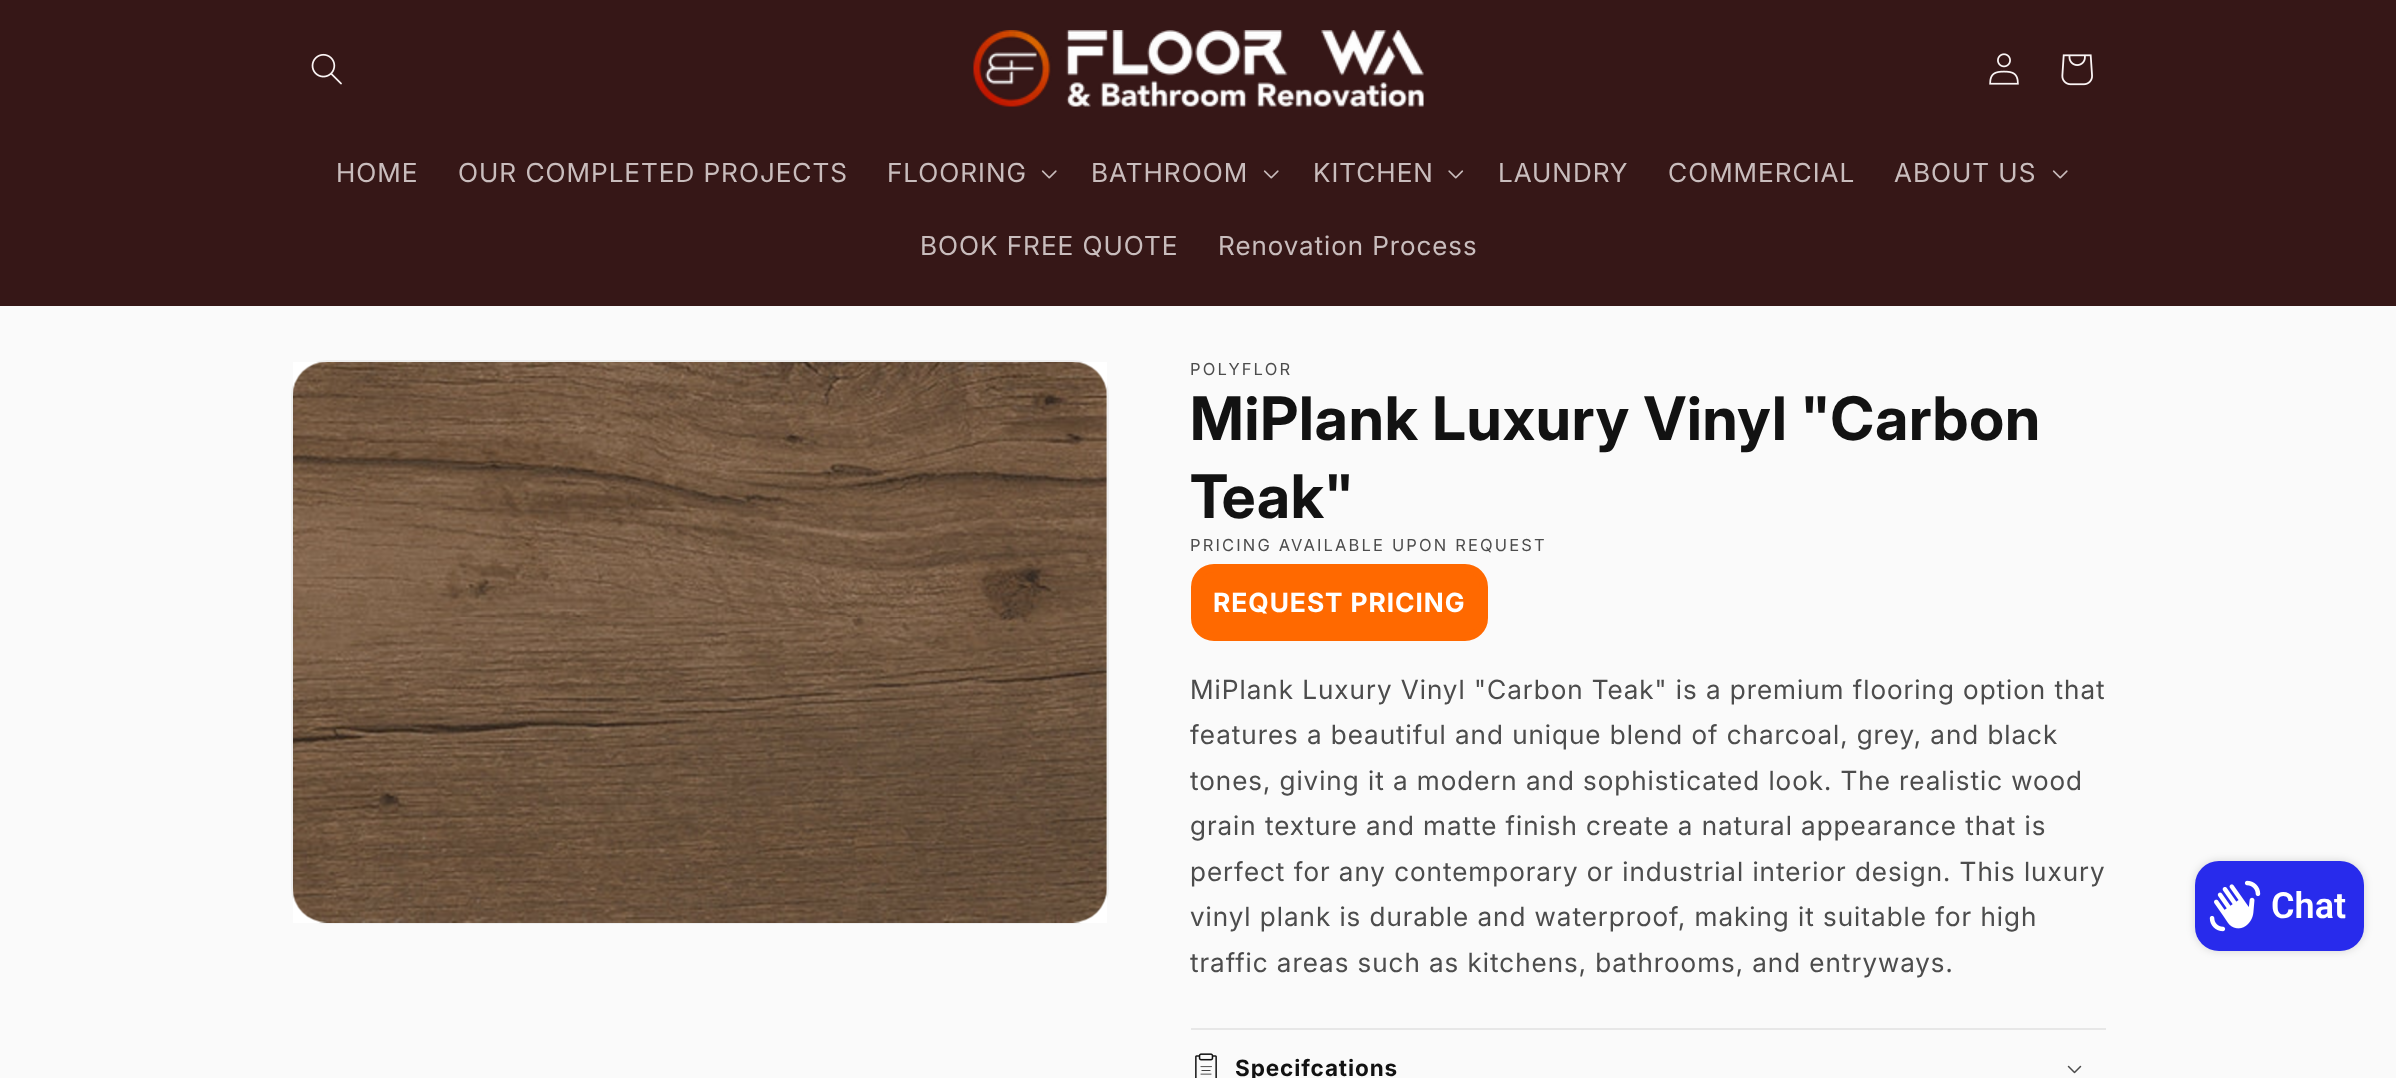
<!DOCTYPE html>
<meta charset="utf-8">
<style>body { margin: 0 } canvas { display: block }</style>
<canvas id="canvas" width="2396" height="1078"></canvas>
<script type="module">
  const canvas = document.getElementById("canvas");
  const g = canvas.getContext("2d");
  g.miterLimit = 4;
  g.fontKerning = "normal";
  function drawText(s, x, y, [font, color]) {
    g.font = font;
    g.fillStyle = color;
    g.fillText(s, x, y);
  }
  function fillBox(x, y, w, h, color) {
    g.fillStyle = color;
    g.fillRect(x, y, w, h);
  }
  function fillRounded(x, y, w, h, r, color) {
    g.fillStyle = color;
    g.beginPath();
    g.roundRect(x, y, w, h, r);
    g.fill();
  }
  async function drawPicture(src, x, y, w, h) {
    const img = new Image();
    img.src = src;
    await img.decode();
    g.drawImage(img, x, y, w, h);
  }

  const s1 = ["26.25px 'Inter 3'", "#C9BDBD"];
  const s2 = ["16.5px Inter", "#4C4C4C"];
  const s3 = ["bold 60px Inter", "#121212"];
  const s4 = ["bold 26.4px 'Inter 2'", "#FFFFFF"];
  const s5 = ["26.4px 'Inter 2'", "#4C4C4C"];
  const s6 = ["bold 22.5px 'Inter 3'", "#121212"];
  const s7 = ["600 36px Roboto", "#FFFFFF"];

  fillBox(0, 0, 2396, 1078, "#FAFAFA");
  fillBox(0, 0, 2396, 306, "#361717");
  await drawPicture("pic1.png", 311, 53, 31, 32);
  await drawPicture("pic2.png", 973, 30, 451, 77);
  await drawPicture("pic3.png", 1989, 53, 30, 32);
  await drawPicture("pic4.png", 2061, 54, 32, 32);
  g.letterSpacing = "1px";
  drawText("HOME", 336, 182, s1);
  drawText("OUR COMPLETED PROJECTS", 458, 182, s1);
  drawText("FLOORING", 887, 182, s1);
  await drawPicture("pic5.png", 1041, 170, 16, 9);
  drawText("BATHROOM", 1091, 182, s1);
  await drawPicture("pic5.png", 1263, 170, 16, 9);
  drawText("KITCHEN", 1313, 182, s1);
  await drawPicture("pic6.png", 1448, 170, 16, 9);
  drawText("LAUNDRY", 1498, 182, s1);
  drawText("COMMERCIAL", 1668, 182, s1);
  drawText("ABOUT US", 1894, 182, s1);
  await drawPicture("pic5.png", 2052, 170, 16, 9);
  drawText("BOOK FREE QUOTE", 920, 255, s1);
  drawText("Renovation Process", 1218, 255, s1);
  g.beginPath();
  g.roundRect(292, 361, 816, 562, 35);
  g.strokeStyle = "#EEEEEE";
  g.lineWidth = 2;
  g.stroke();
  fillBox(293, 362, 814, 561, "#FFFFFF");
  await drawPicture("pic7.png", 293, 362, 814, 561);
  g.letterSpacing = "2.15px";
  drawText("POLYFLOR", 1190, 375, s2);
  g.letterSpacing = "0.9px";
  drawText("MiPlank Luxury Vinyl \"Carbon", 1190, 440, s3);
  drawText("Teak\"", 1190, 518, s3);
  g.letterSpacing = "2.15px";
  drawText("PRICING AVAILABLE UPON REQUEST", 1190, 551, s2);
  g.fillStyle = "#FF6900";
  g.beginPath();
  g.roundRect(1195, 568, 289, 69, 19);
  g.fill();
  g.strokeStyle = "#FF6900";
  g.lineWidth = 8;
  g.stroke();
  g.letterSpacing = "1px";
  drawText("REQUEST PRICING", 1213, 612, s4);
  drawText("MiPlank Luxury Vinyl \"Carbon Teak\" is a premium flooring option that", 1190, 699, s5);
  drawText("features a beautiful and unique blend of charcoal, grey, and black", 1190, 744, s5);
  drawText("tones, giving it a modern and sophisticated look. The realistic wood", 1190, 790, s5);
  drawText("grain texture and matte finish create a natural appearance that is", 1190, 835, s5);
  drawText("perfect for any contemporary or industrial interior design. This luxury", 1190, 881, s5);
  drawText("vinyl plank is durable and waterproof, making it suitable for high", 1190, 926, s5);
  drawText("traffic areas such as kitchens, bathrooms, and entryways.", 1190, 972, s5);
  fillBox(1191, 1028, 915, 2, "#E7E7E7");
  await drawPicture("pic8.png", 1195, 1053, 22, 25);
  g.letterSpacing = "0.9px";
  drawText("Specifcations", 1235, 1076, s6);
  await drawPicture("pic9.png", 2067, 1065, 15, 9);
  g.fillStyle = "rgba(0, 0, 0, 0.15)";
  g.filter = "blur(4px)";
  g.beginPath();
  g.roundRect(2195, 861, 169, 90, 24);
  g.fill();
  g.filter = "none";
  fillRounded(2195, 861, 169, 90, 24, "#282BEC");
  await drawPicture("pic10.png", 2209, 880, 52, 52);
  g.letterSpacing = "0px";
  drawText("Chat", 2271, 918, s7);
</script>
